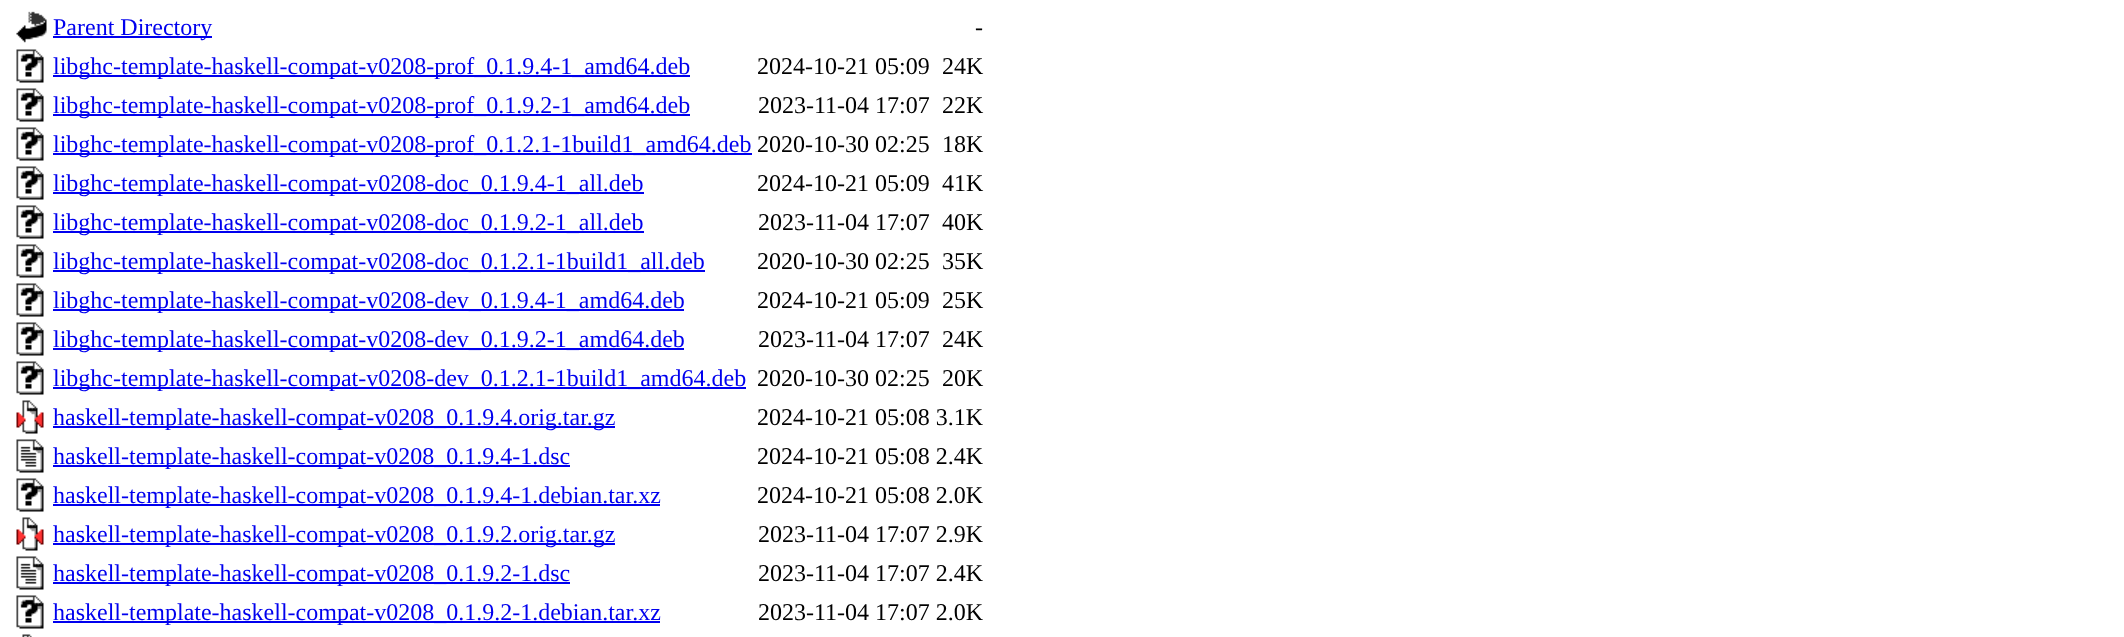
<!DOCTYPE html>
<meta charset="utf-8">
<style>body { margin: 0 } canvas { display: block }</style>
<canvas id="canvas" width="2124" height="637"></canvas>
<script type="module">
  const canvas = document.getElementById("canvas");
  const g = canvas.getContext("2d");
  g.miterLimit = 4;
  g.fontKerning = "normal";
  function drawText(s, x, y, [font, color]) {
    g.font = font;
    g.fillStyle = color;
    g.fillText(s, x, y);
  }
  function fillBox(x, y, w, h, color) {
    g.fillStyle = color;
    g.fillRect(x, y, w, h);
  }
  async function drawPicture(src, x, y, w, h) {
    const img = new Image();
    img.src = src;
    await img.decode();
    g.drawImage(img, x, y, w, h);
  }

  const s1 = ["24px Liberation Serif", "#0000EE"];
  const s2 = ["24px Liberation Serif", "#000000"];

  fillBox(0, 0, 2124, 637, "#FFFFFF");
  await drawPicture("pic1.png", 16, 11, 31, 32);
  fillBox(53, 36, 159, 2, "#0000EE");
  drawText("Parent Directory", 53, 35, s1);
  drawText("-", 975, 35, s2);
  await drawPicture("pic2.png", 16, 49, 28, 34);
  fillBox(53, 75, 637, 2, "#0000EE");
  drawText("libghc-template-haskell-compat-v0208-prof_0.1.9.4-1_amd64.deb", 53, 74, s1);
  drawText("2024-10-21 05:09", 757, 74, s2);
  drawText("24K", 942, 74, s2);
  await drawPicture("pic2.png", 16, 88, 28, 34);
  fillBox(53, 114, 637, 2, "#0000EE");
  drawText("libghc-template-haskell-compat-v0208-prof_0.1.9.2-1_amd64.deb", 53, 113, s1);
  drawText("2023-11-04 17:07", 758, 113, s2);
  drawText("22K", 942, 113, s2);
  await drawPicture("pic2.png", 16, 127, 28, 34);
  fillBox(53, 153, 699, 2, "#0000EE");
  drawText("libghc-template-haskell-compat-v0208-prof_0.1.2.1-1build1_amd64.deb", 53, 152, s1);
  drawText("2020-10-30 02:25", 757, 152, s2);
  drawText("18K", 942, 152, s2);
  await drawPicture("pic2.png", 16, 166, 28, 34);
  fillBox(53, 192, 591, 2, "#0000EE");
  drawText("libghc-template-haskell-compat-v0208-doc_0.1.9.4-1_all.deb", 53, 191, s1);
  drawText("2024-10-21 05:09", 757, 191, s2);
  drawText("41K", 942, 191, s2);
  await drawPicture("pic2.png", 16, 205, 28, 34);
  fillBox(53, 231, 591, 2, "#0000EE");
  drawText("libghc-template-haskell-compat-v0208-doc_0.1.9.2-1_all.deb", 53, 230, s1);
  drawText("2023-11-04 17:07", 758, 230, s2);
  drawText("40K", 942, 230, s2);
  await drawPicture("pic2.png", 16, 244, 28, 34);
  fillBox(53, 270, 652, 2, "#0000EE");
  drawText("libghc-template-haskell-compat-v0208-doc_0.1.2.1-1build1_all.deb", 53, 269, s1);
  drawText("2020-10-30 02:25", 757, 269, s2);
  drawText("35K", 942, 269, s2);
  await drawPicture("pic2.png", 16, 283, 28, 34);
  fillBox(53, 309, 631, 2, "#0000EE");
  drawText("libghc-template-haskell-compat-v0208-dev_0.1.9.4-1_amd64.deb", 53, 308, s1);
  drawText("2024-10-21 05:09", 757, 308, s2);
  drawText("25K", 942, 308, s2);
  await drawPicture("pic2.png", 16, 322, 28, 34);
  fillBox(53, 348, 631, 2, "#0000EE");
  drawText("libghc-template-haskell-compat-v0208-dev_0.1.9.2-1_amd64.deb", 53, 347, s1);
  drawText("2023-11-04 17:07", 758, 347, s2);
  drawText("24K", 942, 347, s2);
  await drawPicture("pic2.png", 16, 361, 28, 34);
  fillBox(53, 387, 693, 2, "#0000EE");
  drawText("libghc-template-haskell-compat-v0208-dev_0.1.2.1-1build1_amd64.deb", 53, 386, s1);
  drawText("2020-10-30 02:25", 757, 386, s2);
  drawText("20K", 942, 386, s2);
  await drawPicture("pic3.png", 16, 400, 28, 34);
  fillBox(53, 426, 562, 2, "#0000EE");
  drawText("haskell-template-haskell-compat-v0208_0.1.9.4.orig.tar.gz", 53, 425, s1);
  drawText("2024-10-21 05:08 3.1K", 757, 425, s2);
  await drawPicture("pic4.png", 16, 439, 28, 34);
  fillBox(53, 465, 517, 2, "#0000EE");
  drawText("haskell-template-haskell-compat-v0208_0.1.9.4-1.dsc", 53, 464, s1);
  drawText("2024-10-21 05:08 2.4K", 757, 464, s2);
  await drawPicture("pic2.png", 16, 478, 28, 34);
  fillBox(53, 504, 607, 2, "#0000EE");
  drawText("haskell-template-haskell-compat-v0208_0.1.9.4-1.debian.tar.xz", 53, 503, s1);
  drawText("2024-10-21 05:08 2.0K", 757, 503, s2);
  await drawPicture("pic3.png", 16, 517, 28, 34);
  fillBox(53, 543, 562, 2, "#0000EE");
  drawText("haskell-template-haskell-compat-v0208_0.1.9.2.orig.tar.gz", 53, 542, s1);
  drawText("2023-11-04 17:07 2.9K", 758, 542, s2);
  await drawPicture("pic4.png", 16, 556, 28, 34);
  fillBox(53, 582, 517, 2, "#0000EE");
  drawText("haskell-template-haskell-compat-v0208_0.1.9.2-1.dsc", 53, 581, s1);
  drawText("2023-11-04 17:07 2.4K", 758, 581, s2);
  await drawPicture("pic2.png", 16, 595, 28, 34);
  fillBox(53, 621, 607, 2, "#0000EE");
  drawText("haskell-template-haskell-compat-v0208_0.1.9.2-1.debian.tar.xz", 53, 620, s1);
  drawText("2023-11-04 17:07 2.0K", 758, 620, s2);
  await drawPicture("pic5.png", 22, 634, 10, 3);
</script>
